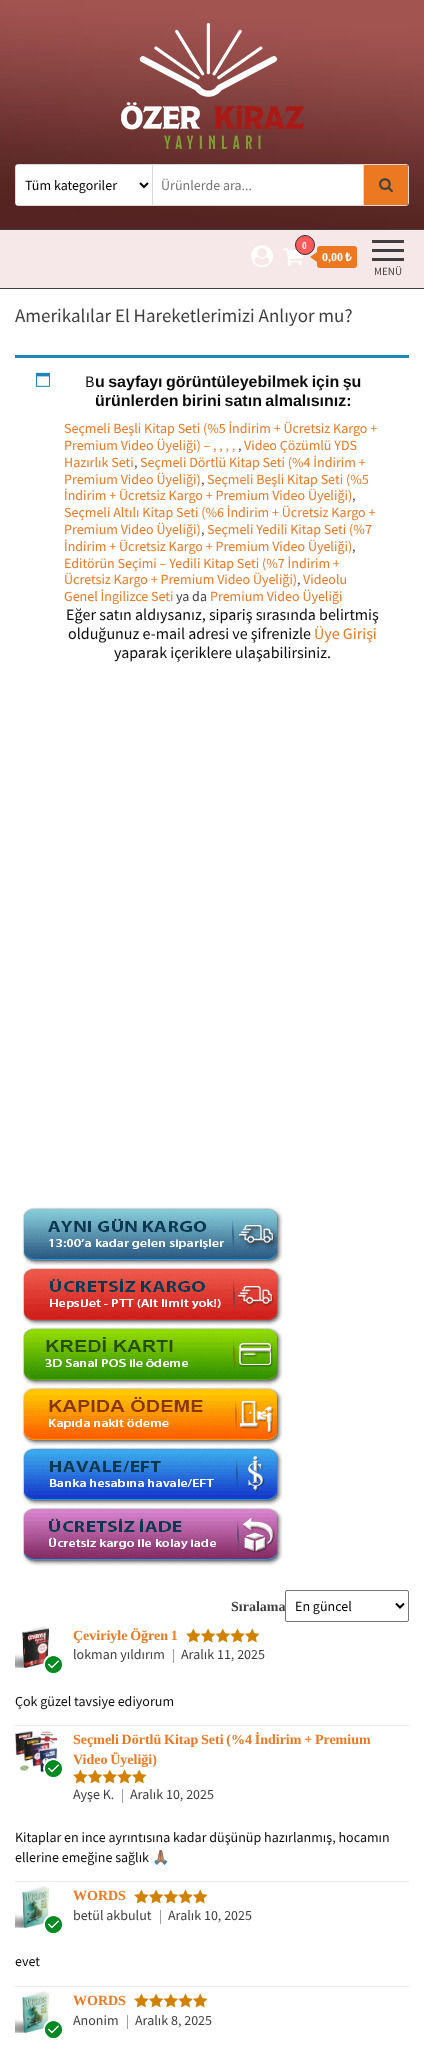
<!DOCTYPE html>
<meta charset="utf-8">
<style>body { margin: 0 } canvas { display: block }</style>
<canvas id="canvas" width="424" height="2063"></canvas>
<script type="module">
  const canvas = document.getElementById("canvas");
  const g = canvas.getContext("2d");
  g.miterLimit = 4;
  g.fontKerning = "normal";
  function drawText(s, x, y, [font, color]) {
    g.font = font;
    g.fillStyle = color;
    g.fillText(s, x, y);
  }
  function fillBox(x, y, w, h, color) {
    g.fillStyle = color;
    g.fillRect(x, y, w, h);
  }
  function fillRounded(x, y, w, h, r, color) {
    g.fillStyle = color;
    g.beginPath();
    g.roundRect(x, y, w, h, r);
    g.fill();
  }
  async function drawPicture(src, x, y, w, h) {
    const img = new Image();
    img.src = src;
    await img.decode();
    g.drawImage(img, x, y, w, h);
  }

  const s1 = ["14px Source Sans Pro", "#000000"];
  const s2 = ["14px Source Sans Pro", "#757575"];
  const s3 = ["bold 10px Open Sans Condensed", "#FFEBEC"];
  const s4 = ["bold 12px Liberation Serif", "#FFFFFF"];
  const s5 = ["bold 12px Noto Sans", "#FFFFFF"];
  const s6 = ["11px Source Sans Pro", "#3F3F3F"];
  const s7 = ["19px Source Sans Pro", "#3F3F3F"];
  const s8 = ["16px Source Sans Pro", "#0C0C0C"];
  const s9 = ["bold 16px Liberation Sans", "#0C0C0C"];
  const s10 = ["14px Source Sans Pro", "#EC7821"];
  const s11 = ["14px Source Sans Pro", "#3F3F3F"];
  const s12 = ["16px Source Sans Pro", "#EC7821"];
  const s13 = ["bold 14px Liberation Serif", "#3F3F3F"];
  const s14 = ["bold 14px Liberation Serif", "#EC7821"];
  const s15 = ["14px Source Sans Pro", "#0C0C0C"];
  const s16 = ["14px Noto Color Emoji", "#0C0C0C"];

  fillBox(0, 0, 424, 2063, "#FFFFFF");
  await drawPicture("pic1.png", 0, 0, 424, 229);
  await drawPicture("pic2.png", 121, 23, 183, 126);
  g.beginPath();
  g.roundRect(15.5, 164.5, 393, 41, 2.5);
  g.strokeStyle = "#D9D9D9";
  g.stroke();
  fillBox(16, 165, 136, 40, "#FFFFFF");
  fillBox(152, 165, 1, 40, "#D9D9D9");
  g.beginPath();
  g.moveTo(140, 183);
  g.lineTo(144, 187);
  g.lineTo(148, 183);
  g.strokeStyle = "#000000";
  g.lineWidth = 2;
  g.stroke();
  drawText("Tüm kategoriler", 25, 190, s1);
  fillBox(153, 165, 210, 40, "#FFFFFF");
  drawText("Ürünlerde ara...", 161, 190, s2);
  fillBox(364, 165, 44, 40, "#EC7821");
  fillBox(363, 165, 1, 40, "#D9D9D9");
  await drawPicture("pic3.png", 379, 178, 14, 15);
  fillBox(0, 230, 424, 58, "#F6E8E8");
  fillBox(0, 229, 424, 1, "#3F3F3F");
  fillBox(0, 288, 424, 1, "#3F3F3F");
  await drawPicture("pic4.png", 251, 245, 22, 22);
  await drawPicture("pic5.png", 283, 248, 21, 18);
  g.fillStyle = "#FF5959";
  g.beginPath();
  g.arc(305, 245, 9.5, 0, Math.PI * 2);
  g.fill();
  g.strokeStyle = "#2D2D2D";
  g.lineWidth = 1;
  g.stroke();
  drawText("0", 302, 249, s3);
  fillRounded(317, 246, 40, 22, 3, "#EC7821");
  g.beginPath();
  g.moveTo(317, 252);
  g.lineTo(317, 262);
  g.lineTo(310, 257);
  g.closePath();
  g.fill();
  drawText("0,00", 322, 261, s4);
  drawText("₺", 345, 261, s5);
  fillBox(372, 240, 32, 3, "#3F3F3F");
  fillBox(372, 249, 32, 3, "#3F3F3F");
  fillBox(372, 258, 32, 3, "#3F3F3F");
  drawText("MENÜ", 374, 275, s6);
  drawText("Amerikalılar El Hareketlerimizi Anlıyor mu?", 15, 322, s7);
  fillBox(15, 355, 394, 3, "#1E85BE");
  await drawPicture("pic6.png", 36, 372, 14, 15);
  drawText("B", 85, 387, s8);
  g.wordSpacing = "-1px";
  drawText("u sayfayı görüntüleyebilmek için şu", 95, 387, s9);
  drawText("ürünlerden birini satın almalısınız:", 95, 406, s9);
  g.wordSpacing = "0px";
  drawText("Seçmeli Beşli Kitap Seti (%5 İndirim + Ücretsiz Kargo +", 64, 433, s10);
  drawText("Premium Video Üyeliği) – , , , ,", 64, 450, s10);
  drawText(",", 238, 450, s11);
  drawText("Video Çözümlü YDS", 244, 450, s10);
  drawText("Hazırlık Seti", 64, 467, s10);
  drawText(",", 134, 467, s11);
  drawText("Seçmeli Dörtlü Kitap Seti (%4 İndirim +", 140, 467, s10);
  drawText("Premium Video Üyeliği)", 64, 484, s10);
  drawText(",", 201, 484, s11);
  drawText("Seçmeli Beşli Kitap Seti (%5", 207, 484, s10);
  drawText("İndirim + Ücretsiz Kargo + Premium Video Üyeliği)", 64, 500, s10);
  drawText(",", 352, 500, s11);
  drawText("Seçmeli Altılı Kitap Seti (%6 İndirim + Ücretsiz Kargo +", 64, 517, s10);
  drawText("Premium Video Üyeliği)", 64, 534, s10);
  drawText(",", 201, 534, s11);
  drawText("Seçmeli Yedili Kitap Seti (%7", 207, 534, s10);
  drawText("İndirim + Ücretsiz Kargo + Premium Video Üyeliği)", 64, 551, s10);
  drawText(",", 352, 551, s11);
  drawText("Editörün Seçimi – Yedili Kitap Seti (%7 İndirim +", 64, 568, s10);
  drawText("Ücretsiz Kargo + Premium Video Üyeliği)", 64, 584, s10);
  drawText(",", 297, 584, s11);
  drawText("Videolu", 303, 584, s10);
  drawText("Genel İngilizce Seti", 64, 601, s10);
  drawText("ya da", 176, 601, s11);
  drawText("Premium Video Üyeliği", 210, 601, s10);
  drawText("Eğer satın aldıysanız, sipariş sırasında belirtmiş", 66, 620, s8);
  drawText("olduğunuz e-mail adresi ve şifrenizle", 68, 639, s8);
  drawText("Üye Girişi", 314, 639, s12);
  drawText("yaparak içeriklere ulaşabilirsiniz.", 114, 658, s8);
  await drawPicture("pic7.png", 22, 1207, 261, 359);
  drawText("Sıralama", 231, 1611, s13);
  g.beginPath();
  g.roundRect(285.5, 1590.5, 123, 31, 1.5);
  g.strokeStyle = "#767676";
  g.stroke();
  g.beginPath();
  g.moveTo(396, 1603.5);
  g.lineTo(400, 1607.5);
  g.lineTo(404, 1603.5);
  g.strokeStyle = "#000000";
  g.lineWidth = 2;
  g.stroke();
  drawText("En güncel", 295, 1611, s1);
  fillBox(15, 1725, 394, 1, "#EBEBEB");
  await drawPicture("pic8.png", 15, 1626, 35, 42);
  await drawPicture("pic9.png", 43, 1655, 19, 18);
  g.wordSpacing = "-0.75px";
  drawText("Çeviriyle Öğren 1", 73, 1640, s14);
  await drawPicture("pic10.png", 186, 1628, 74, 15);
  g.wordSpacing = "0px";
  drawText("lokman yıldırım", 73, 1659, s11);
  fillBox(173, 1649, 1, 14, "#A0A0A0");
  drawText("Aralık 11, 2025", 181, 1659, s11);
  drawText("Çok güzel tavsiye ediyorum", 15, 1706, s15);
  fillBox(15, 1881, 394, 1, "#EBEBEB");
  await drawPicture("pic11.png", 15, 1730, 42, 42);
  await drawPicture("pic12.png", 43, 1758, 19, 19);
  g.wordSpacing = "-0.75px";
  drawText("Seçmeli Dörtlü Kitap Seti (%4 İndirim + Premium", 73, 1744, s14);
  drawText("Video Üyeliği)", 73, 1764, s14);
  await drawPicture("pic10.png", 73, 1769, 74, 15);
  g.wordSpacing = "0px";
  drawText("Ayşe K.", 73, 1799, s11);
  fillBox(122, 1789, 1, 14, "#A0A0A0");
  drawText("Aralık 10, 2025", 130, 1799, s11);
  drawText("Kitaplar en ince ayrıntısına kadar düşünüp hazırlanmış, hocamın", 15, 1842, s15);
  drawText("ellerine emeğine sağlık", 15, 1862, s15);
  drawText("🙏🏽", 152, 1862, s16);
  fillBox(15, 1986, 394, 1, "#EBEBEB");
  await drawPicture("pic13.png", 15, 1886, 34, 42);
  await drawPicture("pic14.png", 43, 1915, 19, 18);
  drawText("WORDS", 73, 1900, s14);
  await drawPicture("pic10.png", 134, 1889, 74, 15);
  drawText("betül akbulut", 73, 1920, s11);
  fillBox(160, 1910, 1, 14, "#A0A0A0");
  drawText("Aralık 10, 2025", 168, 1920, s11);
  drawText("evet", 15, 1966, s15);
  await drawPicture("pic13.png", 15, 1991, 34, 42);
  await drawPicture("pic15.png", 43, 2020, 19, 18);
  drawText("WORDS", 73, 2005, s14);
  await drawPicture("pic10.png", 134, 1993, 74, 15);
  drawText("Anonim", 73, 2025, s11);
  fillBox(127, 2015, 1, 14, "#A0A0A0");
  drawText("Aralık 8, 2025", 135, 2025, s11);
</script>
